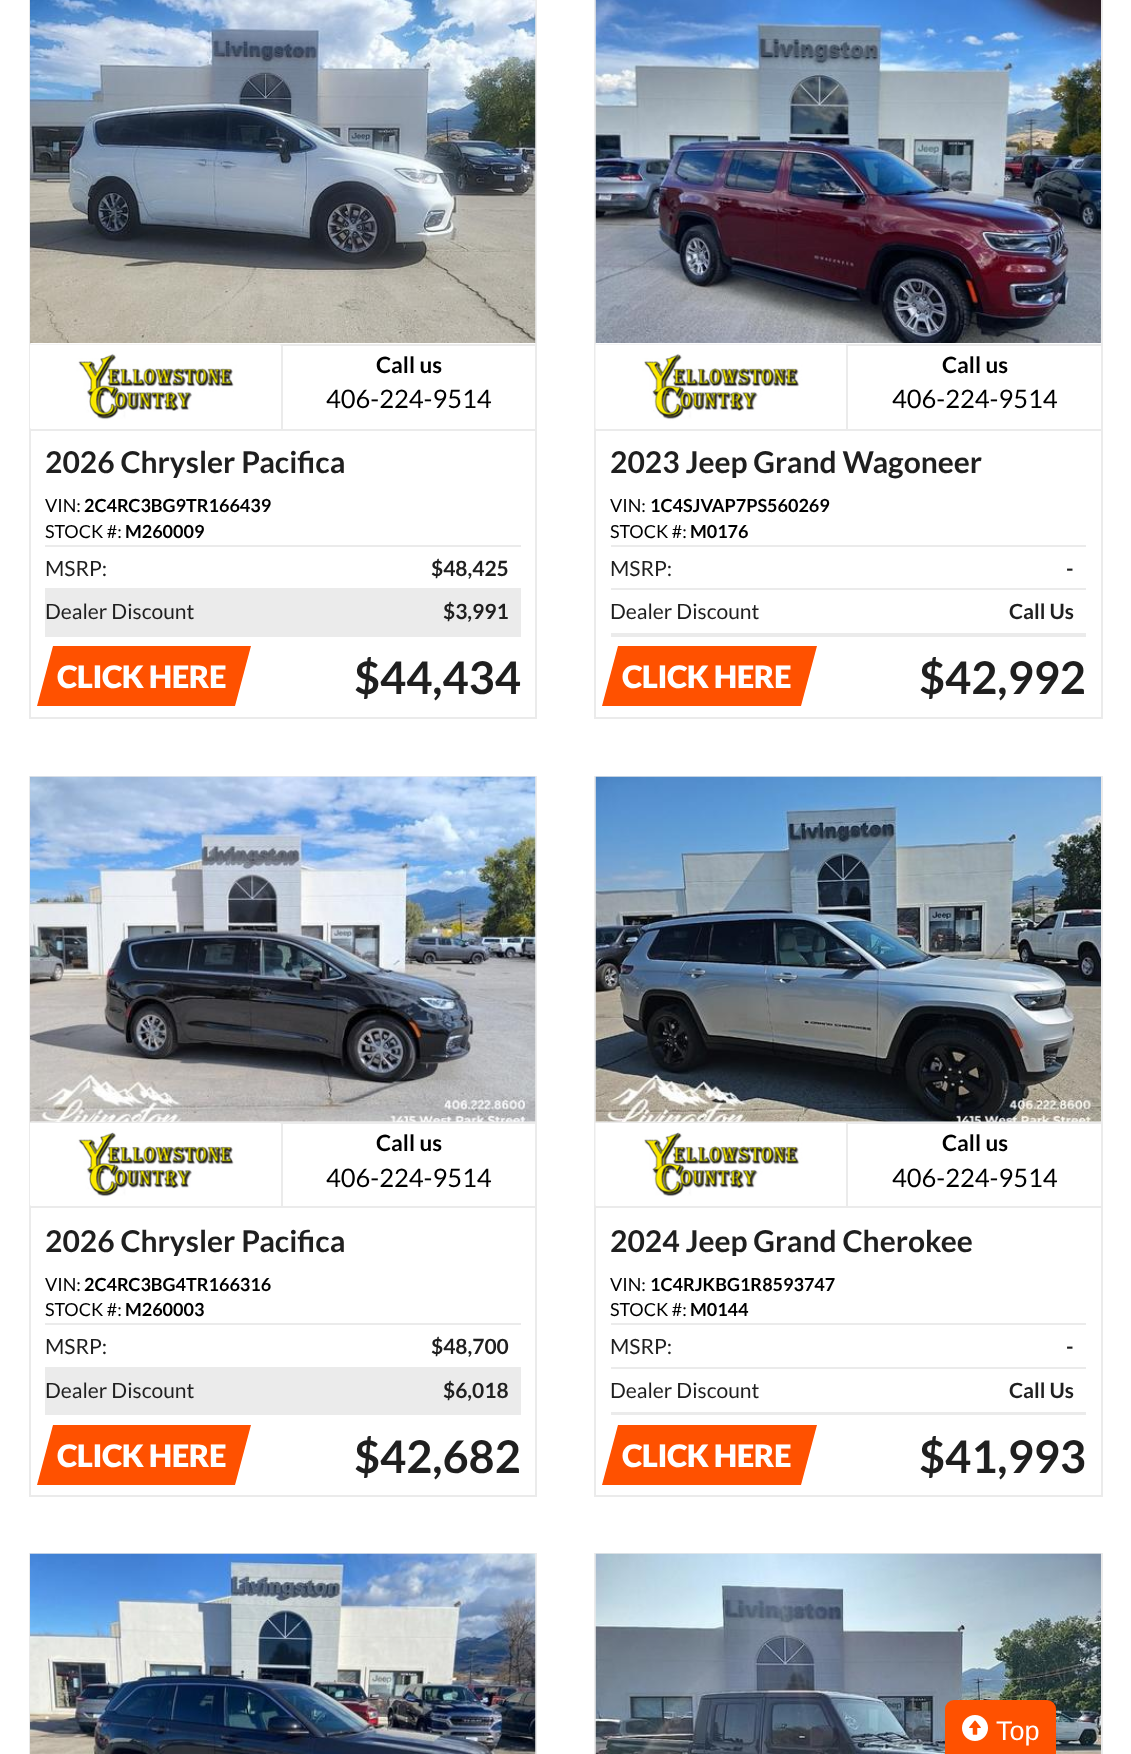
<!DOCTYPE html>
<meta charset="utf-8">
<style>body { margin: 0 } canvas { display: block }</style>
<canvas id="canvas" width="1131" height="1754"></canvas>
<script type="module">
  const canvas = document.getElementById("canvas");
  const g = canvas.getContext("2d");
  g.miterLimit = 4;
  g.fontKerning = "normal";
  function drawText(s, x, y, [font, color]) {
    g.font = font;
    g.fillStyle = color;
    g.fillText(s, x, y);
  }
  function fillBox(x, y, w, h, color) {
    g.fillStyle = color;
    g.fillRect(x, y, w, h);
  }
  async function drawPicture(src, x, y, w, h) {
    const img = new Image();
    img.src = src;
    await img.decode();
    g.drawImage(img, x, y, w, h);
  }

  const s1 = ["bold 22.5px Lato", "#000000"];
  const s2 = ["25.5px Lato", "#000000"];
  const s3 = ["bold 30px Lato", "#1F1F1F"];
  const s4 = ["18px Lato", "#000000"];
  const s5 = ["bold 18px Lato", "#000000"];
  const s6 = ["21px Lato", "#1F1F1F"];
  const s7 = ["bold 21px Lato", "#1F1F1F"];
  const s8 = ["900 31px Lato", "#FFFFFF"];
  const s9 = ["bold 45px Lato", "#1F1F1F"];
  const s10 = ["27px Liberation Sans", "#FFFFFF"];

  fillBox(0, 0, 1131, 1754, "#FFFFFF");
  g.strokeStyle = "#EBEBEB";
  g.lineWidth = 2;
  g.strokeRect(30, -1, 506, 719);
  await drawPicture("pic1.png", 30, 0, 506, 343);
  fillBox(30, 344, 252, 2, "#EBEBEB");
  fillBox(281, 344, 2, 87, "#EBEBEB");
  fillBox(30, 429, 506, 2, "#EBEBEB");
  await drawPicture("pic2.png", 30, 344, 251, 85);
  fillBox(282, 344, 254, 2, "#EBEBEB");
  drawText("Call us", 376, 373, s1);
  drawText("406-224-9514", 326, 408, s2);
  drawText("2026 Chrysler Pacifica", 45, 473, s3);
  drawText("VIN:", 45, 512, s4);
  drawText("2C4RC3BG9TR166439", 84, 512, s5);
  drawText("STOCK #:", 45, 538, s4);
  drawText("M260009", 125, 538, s5);
  fillBox(45, 545, 476, 2, "#EBEBEB");
  fillBox(45, 588, 476, 49, "#EBEBEB");
  drawText("MSRP:", 45, 576, s6);
  drawText("$48,425", 431, 576, s7);
  drawText("Dealer Discount", 45, 619, s6);
  drawText("$3,991", 443, 619, s7);
  g.fillStyle = "#FF5100";
  g.beginPath();
  g.moveTo(53, 646);
  g.lineTo(251, 646);
  g.lineTo(235, 706);
  g.lineTo(37, 706);
  g.closePath();
  g.fill();
  g.letterSpacing = "-0.5px";
  drawText("CLICK HERE", 57, 688, s8);
  g.letterSpacing = "0px";
  drawText("$44,434", 354, 694, s9);
  g.strokeRect(595, -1, 507, 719);
  await drawPicture("pic3.png", 595, 0, 506, 343);
  fillBox(596, 344, 252, 1, "#EBEBEB");
  fillBox(846, 344, 2, 87, "#EBEBEB");
  fillBox(596, 429, 505, 2, "#EBEBEB");
  await drawPicture("pic4.png", 595, 344, 251, 85);
  fillBox(848, 344, 253, 2, "#EBEBEB");
  drawText("Call us", 942, 373, s1);
  drawText("406-224-9514", 892, 408, s2);
  drawText("2023 Jeep Grand Wagoneer", 610, 473, s3);
  drawText("VIN:", 610, 512, s4);
  drawText("1C4SJVAP7PS560269", 650, 512, s5);
  drawText("STOCK #:", 610, 538, s4);
  drawText("M0176", 690, 538, s5);
  fillBox(611, 545, 475, 2, "#EBEBEB");
  fillBox(611, 588, 475, 2, "#EBEBEB");
  drawText("MSRP:", 610, 576, s6);
  drawText("-", 1066, 576, s7);
  fillBox(611, 633, 475, 4, "#EBEBEB");
  drawText("Dealer Discount", 610, 619, s6);
  drawText("Call Us", 1009, 619, s7);
  g.fillStyle = "#FF5100";
  g.beginPath();
  g.moveTo(618, 646);
  g.lineTo(817, 646);
  g.lineTo(801, 706);
  g.lineTo(602, 706);
  g.closePath();
  g.fill();
  g.letterSpacing = "-0.5px";
  drawText("CLICK HERE", 622, 688, s8);
  g.letterSpacing = "0px";
  drawText("$42,992", 919, 694, s9);
  g.strokeRect(30, 777, 506, 719);
  await drawPicture("pic5.png", 30, 776, 506, 346);
  fillBox(30, 1122, 252, 2, "#EBEBEB");
  fillBox(281, 1122, 2, 86, "#EBEBEB");
  fillBox(30, 1206, 506, 2, "#EBEBEB");
  await drawPicture("pic6.png", 30, 1123, 251, 83);
  fillBox(282, 1122, 254, 2, "#EBEBEB");
  drawText("Call us", 376, 1151, s1);
  drawText("406-224-9514", 326, 1187, s2);
  g.save();
  g.beginPath();
  g.rect(45, 1223, 300, 33);
  g.clip();
  drawText("2026 Chrysler Pacifica", 45, 1252, s3);
  g.restore();
  drawText("VIN:", 45, 1291, s4);
  drawText("2C4RC3BG4TR166316", 84, 1291, s5);
  drawText("STOCK #:", 45, 1316, s4);
  drawText("M260003", 125, 1316, s5);
  fillBox(45, 1323, 476, 2, "#EBEBEB");
  fillBox(45, 1367, 476, 48, "#EBEBEB");
  drawText("MSRP:", 45, 1354, s6);
  drawText("$48,700", 431, 1354, s7);
  drawText("Dealer Discount", 45, 1398, s6);
  drawText("$6,018", 443, 1398, s7);
  g.fillStyle = "#FF5100";
  g.beginPath();
  g.moveTo(53, 1425);
  g.lineTo(251, 1425);
  g.lineTo(235, 1485);
  g.lineTo(37, 1485);
  g.closePath();
  g.fill();
  g.letterSpacing = "-0.5px";
  drawText("CLICK HERE", 57, 1467, s8);
  g.letterSpacing = "0px";
  drawText("$42,682", 354, 1473, s9);
  g.strokeRect(595, 777, 507, 719);
  await drawPicture("pic7.png", 595, 776, 506, 346);
  fillBox(596, 1122, 252, 1, "#EBEBEB");
  fillBox(846, 1122, 2, 86, "#EBEBEB");
  fillBox(596, 1206, 505, 2, "#EBEBEB");
  await drawPicture("pic8.png", 595, 1123, 251, 83);
  fillBox(848, 1122, 253, 2, "#EBEBEB");
  drawText("Call us", 942, 1151, s1);
  drawText("406-224-9514", 892, 1187, s2);
  g.save();
  g.beginPath();
  g.rect(611, 1223, 363, 33);
  g.clip();
  drawText("2024 Jeep Grand Cherokee", 610, 1252, s3);
  g.restore();
  drawText("VIN:", 610, 1291, s4);
  drawText("1C4RJKBG1R8593747", 650, 1291, s5);
  drawText("STOCK #:", 610, 1316, s4);
  drawText("M0144", 690, 1316, s5);
  fillBox(611, 1323, 475, 2, "#EBEBEB");
  fillBox(611, 1367, 475, 2, "#EBEBEB");
  drawText("MSRP:", 610, 1354, s6);
  drawText("-", 1066, 1354, s7);
  fillBox(611, 1412, 475, 3, "#EBEBEB");
  drawText("Dealer Discount", 610, 1398, s6);
  drawText("Call Us", 1009, 1398, s7);
  g.fillStyle = "#FF5100";
  g.beginPath();
  g.moveTo(618, 1425);
  g.lineTo(817, 1425);
  g.lineTo(801, 1485);
  g.lineTo(602, 1485);
  g.closePath();
  g.fill();
  g.letterSpacing = "-0.5px";
  drawText("CLICK HERE", 622, 1467, s8);
  g.letterSpacing = "0px";
  drawText("$41,993", 919, 1473, s9);
  g.strokeRect(30, 1554, 506, 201);
  await drawPicture("pic9.png", 30, 1553, 506, 201);
  g.strokeRect(595, 1554, 507, 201);
  await drawPicture("pic10.png", 595, 1553, 506, 201);
  g.fillStyle = "#FF5100";
  g.beginPath();
  g.roundRect(946, 1701, 109, 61, 8);
  g.fill();
  g.strokeStyle = "#FF5100";
  g.stroke();
  await drawPicture("pic11.png", 962, 1715, 26, 26);
  drawText("Top", 996, 1740, s10);
</script>
